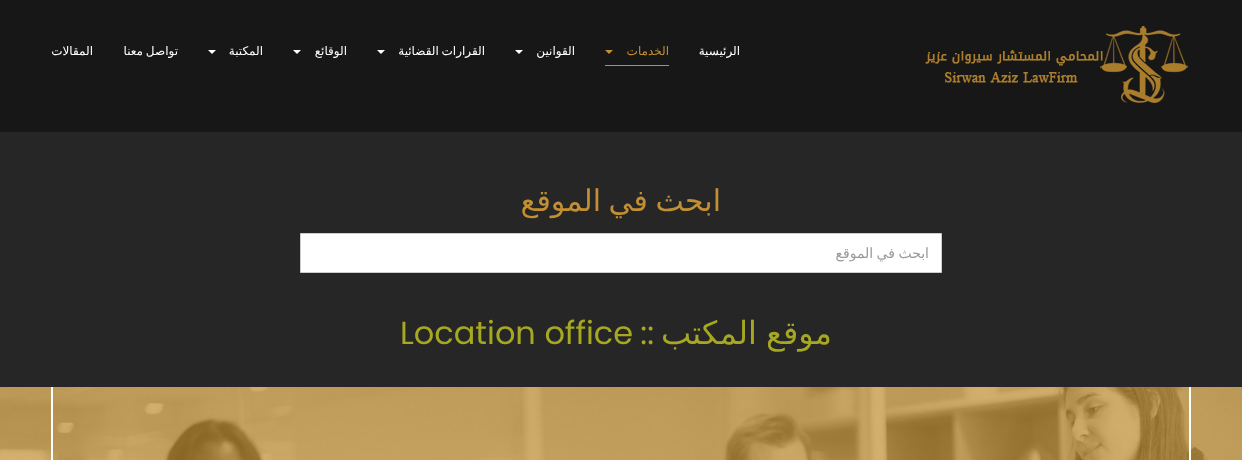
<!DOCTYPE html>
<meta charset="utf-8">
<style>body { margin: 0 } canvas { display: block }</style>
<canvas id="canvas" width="1242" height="460"></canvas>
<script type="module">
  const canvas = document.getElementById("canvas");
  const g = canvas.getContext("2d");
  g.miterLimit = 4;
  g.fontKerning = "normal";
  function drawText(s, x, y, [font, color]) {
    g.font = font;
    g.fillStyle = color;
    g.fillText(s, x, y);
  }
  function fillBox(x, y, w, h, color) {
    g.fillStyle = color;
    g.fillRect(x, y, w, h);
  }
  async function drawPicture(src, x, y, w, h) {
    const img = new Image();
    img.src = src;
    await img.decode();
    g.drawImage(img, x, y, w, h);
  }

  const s1 = ["12px DejaVu Sans", "#FFFFFF"];
  const s2 = ["12px DejaVu Sans", "#C29032"];
  const s3 = ["30px DejaVu Sans", "#C29032"];
  const s4 = ["14px DejaVu Sans", "#999999"];
  const s5 = ["32px DejaVu Sans", "#A6A722"];
  const s6 = ["32px Poppins", "#A6A722"];

  fillBox(0, 0, 1242, 460, "#C29032");
  fillBox(0, 0, 1242, 132, "#171717");
  await drawPicture("pic1.png", 925, 26, 263, 77);
  g.direction = "rtl";
  drawText("الرئيسية", 740, 55, s1);
  drawText("الخدمات", 669, 55, s2);
  g.beginPath();
  g.moveTo(605, 50);
  g.lineTo(613, 50);
  g.lineTo(609, 54);
  g.closePath();
  g.fill();
  fillBox(605, 65, 64, 1, "#C29032");
  drawText("القوانين", 575, 55, s1);
  g.beginPath();
  g.moveTo(515, 50);
  g.lineTo(523, 50);
  g.lineTo(519, 54);
  g.closePath();
  g.fill();
  g.wordSpacing = "-1px";
  drawText("القرارات القضائية", 485, 55, s1);
  g.beginPath();
  g.moveTo(377, 50);
  g.lineTo(385, 50);
  g.lineTo(381, 54);
  g.closePath();
  g.fill();
  g.wordSpacing = "0px";
  drawText("الوقائع", 347, 55, s1);
  g.beginPath();
  g.moveTo(293, 50);
  g.lineTo(301, 50);
  g.lineTo(297, 54);
  g.closePath();
  g.fill();
  drawText("المكتبة", 263, 55, s1);
  g.beginPath();
  g.moveTo(208, 50);
  g.lineTo(216, 50);
  g.lineTo(212, 54);
  g.closePath();
  g.fill();
  g.wordSpacing = "-1px";
  drawText("تواصل معنا", 178, 55, s1);
  g.wordSpacing = "0px";
  drawText("المقالات", 93, 55, s1);
  fillBox(0, 132, 1242, 255, "#262626");
  g.wordSpacing = "-2px";
  drawText("ابحث في الموقع", 721, 211, s3);
  g.fillStyle = "#FFFFFF";
  g.beginPath();
  g.rect(300.5, 233.5, 641, 39);
  g.fill();
  g.strokeStyle = "#CCCCCC";
  g.stroke();
  g.wordSpacing = "-1px";
  drawText("ابحث في الموقع", 929, 258, s4);
  drawText("موقع المكتب", 832, 344, s5);
  g.wordSpacing = "0px";
  drawText("::", 654, 344, s6);
  g.direction = "ltr";
  drawText("Location office", 400, 344, s6);
  await drawPicture("pic2.png", 0, 387, 1242, 73);
  fillBox(1189, 387, 2, 73, "#FFFFFF");
  fillBox(51, 387, 2, 73, "#FFFFFF");
</script>
